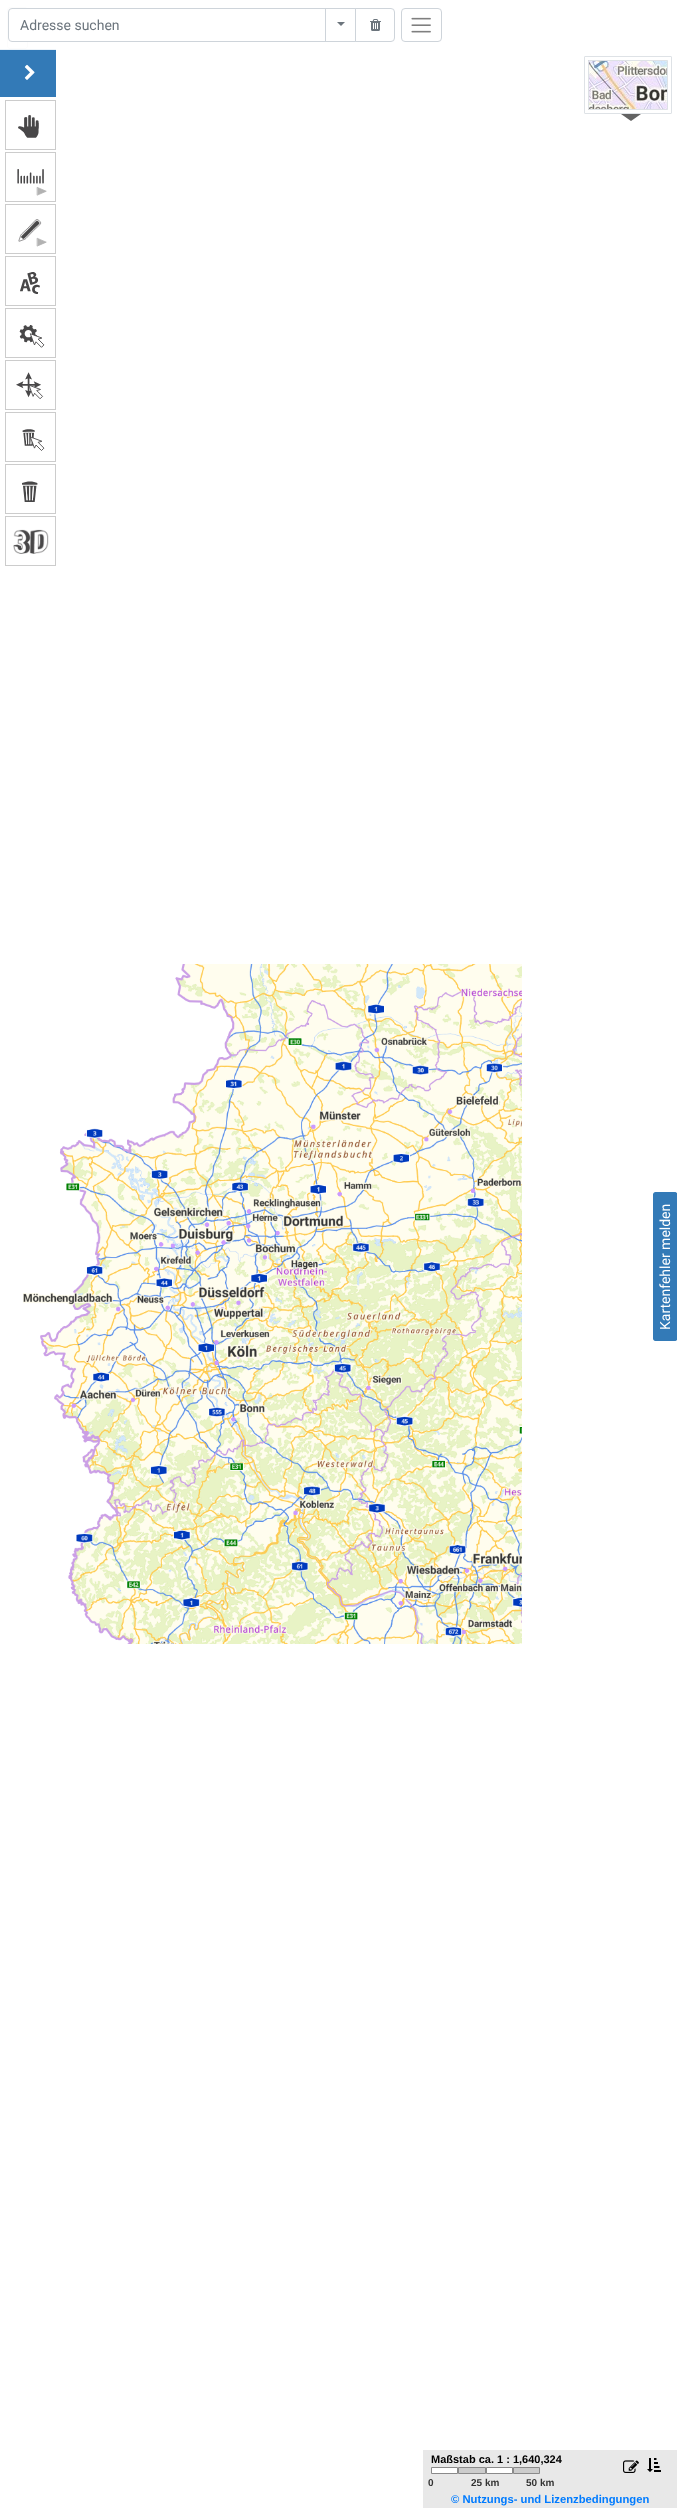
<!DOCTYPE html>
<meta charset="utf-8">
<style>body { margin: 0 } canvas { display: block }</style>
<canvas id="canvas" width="677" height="2508"></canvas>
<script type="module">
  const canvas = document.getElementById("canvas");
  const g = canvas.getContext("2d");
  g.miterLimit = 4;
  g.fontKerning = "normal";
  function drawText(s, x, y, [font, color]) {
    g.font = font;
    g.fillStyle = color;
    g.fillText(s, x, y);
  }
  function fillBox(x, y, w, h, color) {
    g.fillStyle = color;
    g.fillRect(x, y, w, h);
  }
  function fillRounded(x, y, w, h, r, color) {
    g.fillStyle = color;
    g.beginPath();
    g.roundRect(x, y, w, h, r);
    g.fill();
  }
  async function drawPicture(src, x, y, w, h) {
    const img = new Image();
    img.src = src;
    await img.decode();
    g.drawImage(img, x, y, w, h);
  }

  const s1 = ["14px Roboto", "#6C757D"];
  const s2 = ["bold 11px Liberation Sans", "#000000"];
  const s3 = ["bold 10px Liberation Sans", "#333333"];
  const s4 = ["bold 11.25px Liberation Sans", "#007BFF"];

  fillBox(0, 0, 677, 2508, "#FFFFFF");
  fillRounded(7, 7, 21, 42, 4, "#FCFCFC");
  g.fillStyle = "#FFFFFF";
  g.beginPath();
  g.roundRect(8, 8, 19, 19, [2, 2, 0, 0]);
  g.fill();
  g.beginPath();
  g.roundRect(8, 28, 19, 20, [0, 0, 2, 2]);
  g.fill();
  g.beginPath();
  g.roundRect(9, 9, 316, 32, [2.5, 0, 0, 2.5]);
  g.fill();
  g.beginPath();
  g.roundRect(8.5, 8.5, 317, 33, [3.5, 0, 0, 3.5]);
  g.strokeStyle = "#CED4DA";
  g.stroke();
  drawText("Adresse suchen", 20, 30, s1);
  g.strokeRect(325.5, 8.5, 30, 33);
  g.beginPath();
  g.moveTo(337, 22);
  g.lineTo(345, 22);
  g.lineTo(341, 26);
  g.closePath();
  g.fill();
  g.fillStyle = "#FFFFFF";
  g.beginPath();
  g.roundRect(355.5, 8.5, 39, 33, [0, 3.5, 3.5, 0]);
  g.fill();
  g.stroke();
  await drawPicture("pic1.png", 370, 19, 11, 12);
  g.beginPath();
  g.roundRect(401.5, 8.5, 40, 33, 3.5);
  g.stroke();
  await drawPicture("pic2.png", 411, 17, 20, 16);
  g.beginPath();
  g.roundRect(584.5, 56.5, 87, 57, 0.5);
  g.strokeStyle = "#DEE2E6";
  g.stroke();
  await drawPicture("pic3.png", 588, 60, 80, 50);
  g.beginPath();
  g.roundRect(588.5, 60.5, 79, 49, 0.5);
  g.stroke();
  g.fillStyle = "#636363";
  g.beginPath();
  g.moveTo(621, 114);
  g.lineTo(641, 114);
  g.lineTo(631, 121);
  g.closePath();
  g.fill();
  await drawPicture("pic4.png", 23, 964, 499, 680);
  fillBox(0, 50, 56, 47, "#337AB7");
  fillBox(0, 49, 56, 1, "#EBF2F8");
  await drawPicture("pic5.png", 24, 64, 11, 16);
  g.strokeStyle = "#CCCCCC";
  g.strokeRect(5.5, 100.5, 50, 49);
  await drawPicture("pic6.png", 18, 115, 21, 23);
  g.strokeRect(5.5, 152.5, 50, 49);
  await drawPicture("pic7.png", 17, 169, 30, 27);
  g.strokeRect(5.5, 204.5, 50, 49);
  await drawPicture("pic8.png", 18, 219, 29, 28);
  g.strokeRect(5.5, 256.5, 50, 49);
  await drawPicture("pic9.png", 20, 272, 20, 22);
  g.strokeRect(5.5, 308.5, 50, 49);
  await drawPicture("pic10.png", 19, 325, 26, 23);
  g.strokeRect(5.5, 360.5, 50, 49);
  await drawPicture("pic11.png", 16, 372, 28, 27);
  g.strokeRect(5.5, 412.5, 50, 49);
  await drawPicture("pic12.png", 22, 429, 23, 22);
  g.strokeRect(5.5, 464.5, 50, 49);
  await drawPicture("pic13.png", 22, 481, 16, 21);
  g.strokeRect(5.5, 516.5, 50, 49);
  await drawPicture("pic14.png", 13, 529, 36, 25);
  g.fillStyle = "#337AB7";
  g.beginPath();
  g.moveTo(653, 1338);
  g.lineTo(653, 1195);
  g.bezierCurveTo(653, 1193, 654, 1192, 656, 1192);
  g.lineTo(674, 1192);
  g.bezierCurveTo(676, 1192, 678, 1193, 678, 1195);
  g.lineTo(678, 1338);
  g.bezierCurveTo(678, 1340, 676, 1341, 674, 1341);
  g.lineTo(656, 1341);
  g.bezierCurveTo(654, 1341, 653, 1340, 653, 1338);
  g.closePath();
  g.fill();
  g.beginPath();
  g.moveTo(653.5, 1337.5);
  g.lineTo(653.5, 1195.5);
  g.bezierCurveTo(653.5, 1194, 654.5, 1192.5, 656.5, 1192.5);
  g.lineTo(674.5, 1192.5);
  g.bezierCurveTo(676, 1192.5, 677.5, 1194, 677.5, 1195.5);
  g.lineTo(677.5, 1337.5);
  g.bezierCurveTo(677.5, 1339.5, 676, 1340.5, 674.5, 1340.5);
  g.lineTo(656.5, 1340.5);
  g.bezierCurveTo(654.5, 1340.5, 653.5, 1339.5, 653.5, 1337.5);
  g.closePath();
  g.strokeStyle = "#337AB7";
  g.stroke();
  g.fillStyle = "#FFFFFF";
  g.save();
  g.translate(670, 1330);
  g.rotate(-90 * Math.PI / 180);
  g.fillText("Kartenfehler melden", 0, 0);
  g.restore();
  fillBox(423, 2450, 254, 40, "#E8E8E8");
  await drawPicture("pic15.png", 623, 2460, 16, 13);
  await drawPicture("pic16.png", 647, 2458, 14, 14);
  drawText("Maßstab ca. 1 : 1,640,324", 431, 2463, s2);
  g.fillStyle = "#CCCCCC";
  g.beginPath();
  g.rect(458.5, 2467.5, 27, 6);
  g.fill();
  g.strokeStyle = "#8A8A8A";
  g.stroke();
  g.beginPath();
  g.rect(513.5, 2467.5, 26, 6);
  g.fill();
  g.stroke();
  g.fillStyle = "#FFFFFF";
  g.beginPath();
  g.rect(431.5, 2467.5, 26, 6);
  g.fill();
  g.stroke();
  drawText("0", 428, 2486, s3);
  g.fillStyle = "#FFFFFF";
  g.beginPath();
  g.rect(486.5, 2467.5, 26, 6);
  g.fill();
  g.stroke();
  drawText("25 km", 471, 2486, s3);
  drawText("50 km", 526, 2486, s3);
  fillBox(423, 2490, 254, 18, "#E8E8E8");
  drawText("© Nutzungs- und Lizenzbedingungen", 451, 2503, s4);
</script>
